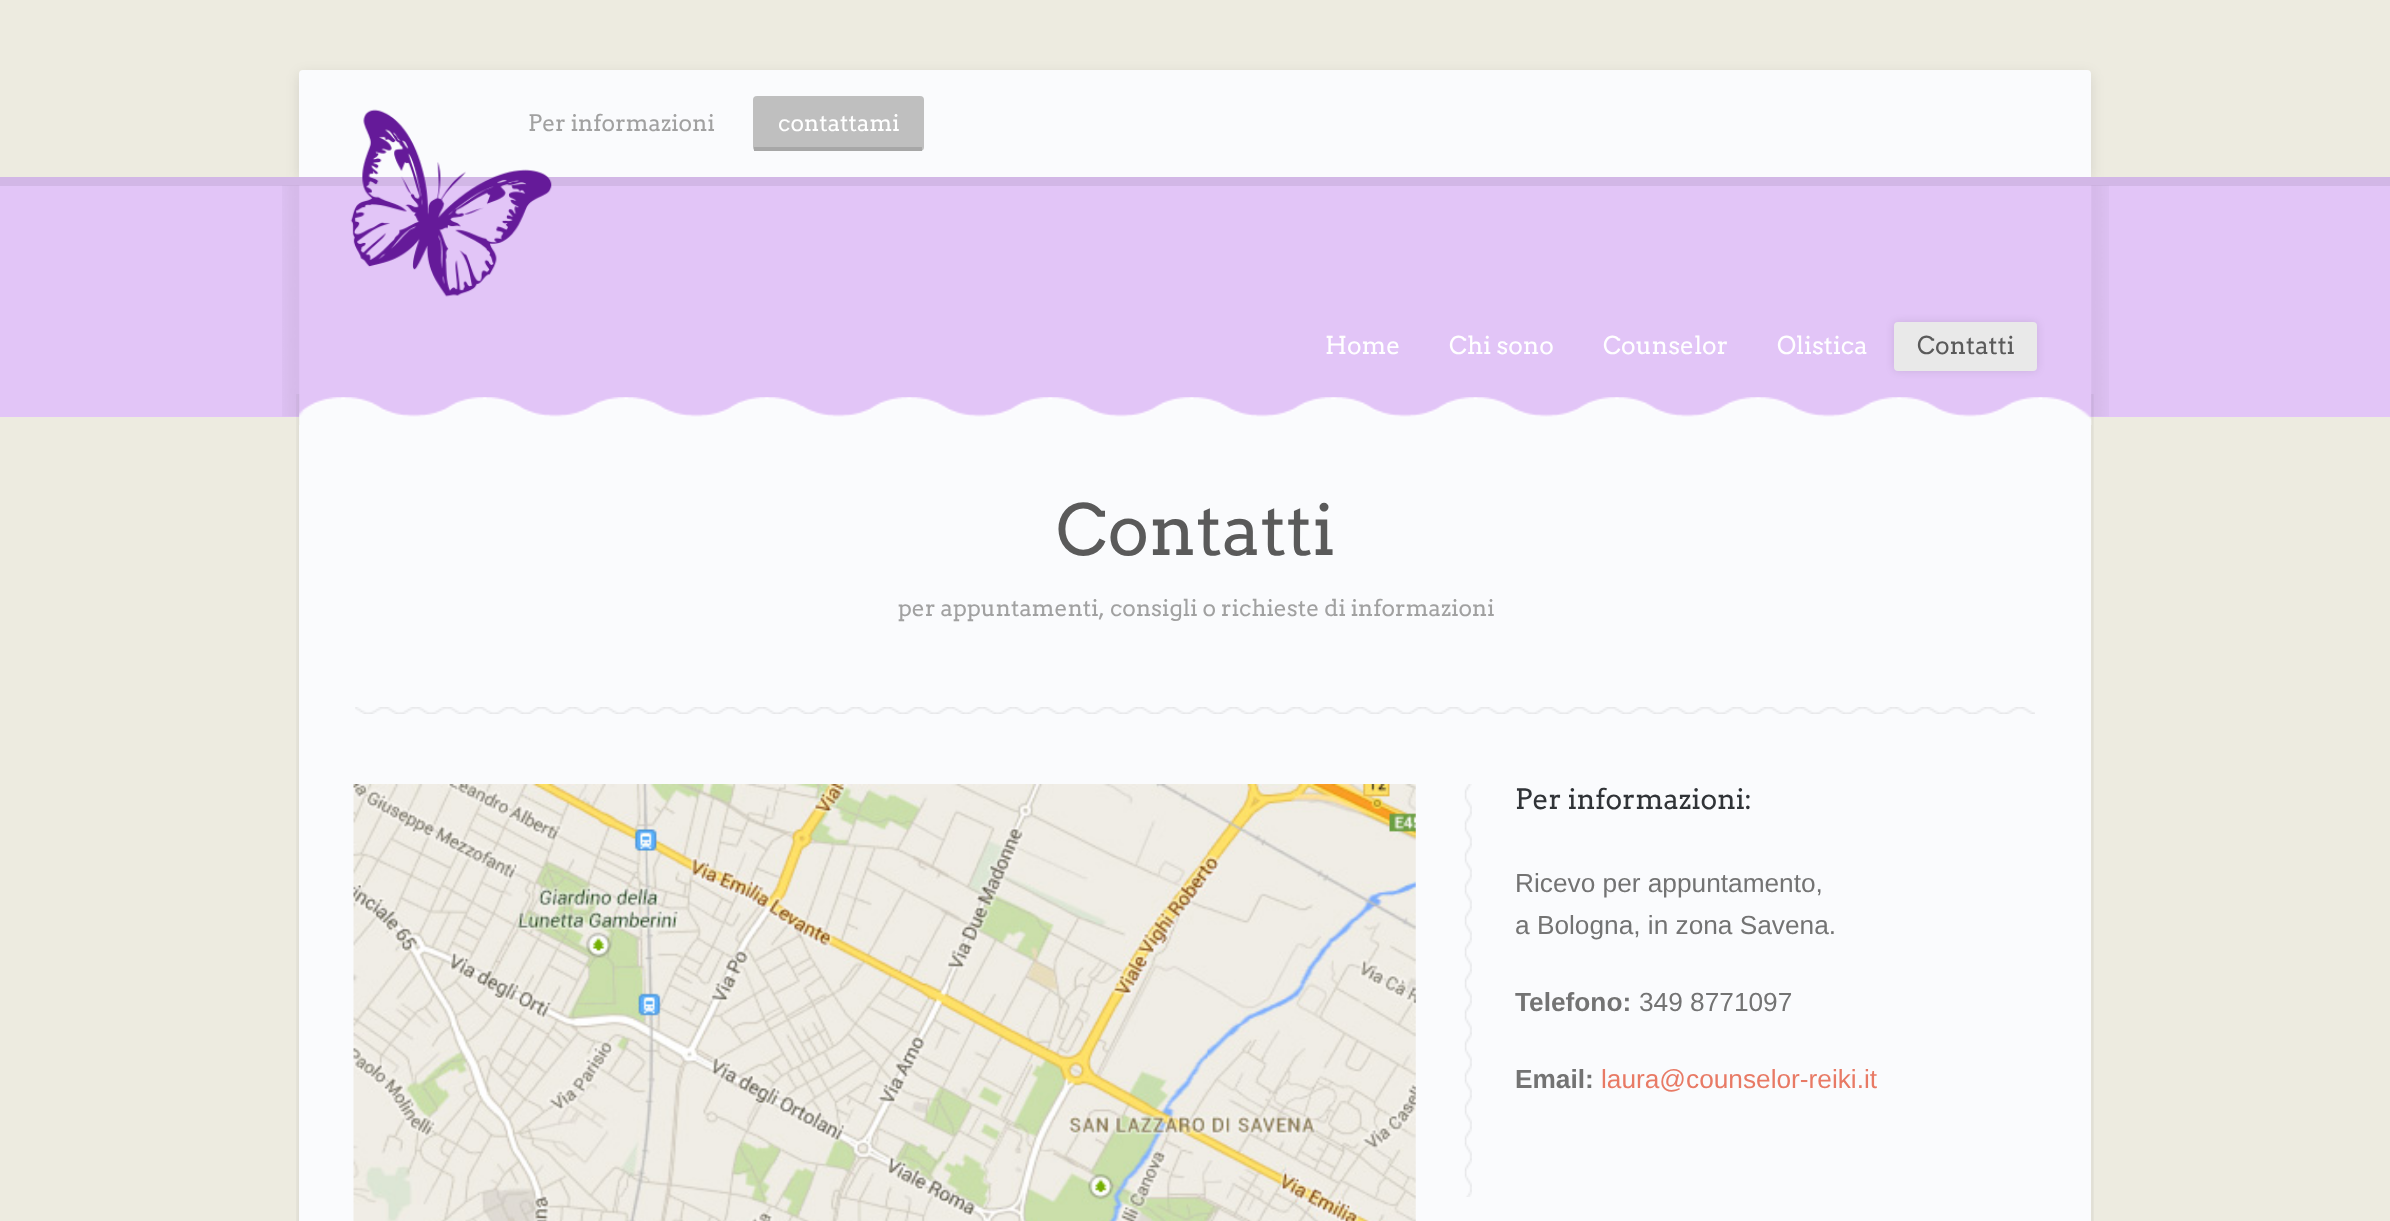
<!DOCTYPE html>
<meta charset="utf-8">
<style>body { margin: 0 } canvas { display: block }</style>
<canvas id="canvas" width="2390" height="1221"></canvas>
<script type="module">
  const canvas = document.getElementById("canvas");
  const g = canvas.getContext("2d");
  g.miterLimit = 4;
  g.fontKerning = "normal";
  function drawText(s, x, y, [font, color]) {
    g.font = font;
    g.fillStyle = color;
    g.fillText(s, x, y);
  }
  function fillBox(x, y, w, h, color) {
    g.fillStyle = color;
    g.fillRect(x, y, w, h);
  }
  function fillRounded(x, y, w, h, r, color) {
    g.fillStyle = color;
    g.beginPath();
    g.roundRect(x, y, w, h, r);
    g.fill();
  }
  async function drawPicture(src, x, y, w, h) {
    const img = new Image();
    img.src = src;
    await img.decode();
    g.drawImage(img, x, y, w, h);
  }

  const s1 = ["22.75px Arvo", "#A1A1A1"];
  const s2 = ["22.75px Arvo", "#FFFFFF"];
  const s3 = ["24.5px Arvo", "#FFFFFF"];
  const s4 = ["24.5px Arvo", "#5A5A5A"];
  const s5 = ["70px Arvo", "#5A5A5A"];
  const s6 = ["28px Arvo", "#303337"];
  const s7 = ["26.25px Liberation Sans", "#737373"];
  const s8 = ["bold 26.25px Liberation Sans", "#737373"];
  const s9 = ["26.25px Liberation Sans", "#E87A65"];

  fillBox(0, 0, 2390, 1221, "#EDEBE0");
  g.fillStyle = "rgba(0, 0, 0, 0.1)";
  g.filter = "blur(7px)";
  g.beginPath();
  g.roundRect(299, 74, 1792, 106, 4);
  g.fill();
  g.filter = "none";
  g.fillStyle = "#FAFBFD";
  g.beginPath();
  g.roundRect(299, 70, 1792, 107, [4, 4, 0, 0]);
  g.fill();
  drawText("Per informazioni", 528, 131, s1);
  fillRounded(753, 96, 171, 55, 4, "#BFBFBF");
  fillBox(754, 147, 168, 4, "#A7A7A7");
  drawText("contattami", 778, 131, s2);
  fillBox(0, 186, 2390, 231, "#E2C5F7");
  fillBox(0, 177, 2390, 9, "#D2B7E6");
  await drawPicture("pic1.png", 282, 185, 1827, 232);
  await drawPicture("pic2.png", 350, 109, 202, 188);
  drawText("Home", 1325, 354, s3);
  drawText("Chi sono", 1449, 354, s3);
  drawText("Counselor", 1603, 354, s3);
  drawText("Olistica", 1777, 354, s3);
  g.fillStyle = "rgba(0, 0, 0, 0.1)";
  g.filter = "blur(4.5px)";
  g.beginPath();
  g.roundRect(1894, 322, 143, 49, 4);
  g.fill();
  g.filter = "none";
  fillRounded(1894, 322, 143, 49, 4, "#E9E9E9");
  drawText("Contatti", 1917, 354, s4);
  await drawPicture("pic3.png", 296, 394, 1798, 827);
  await drawPicture("pic4.png", 299, 397, 1793, 28);
  fillBox(299, 425, 1792, 796, "#FAFBFD");
  await drawPicture("pic5.png", 355, 707, 1680, 7);
  drawText("Contatti", 1056, 555, s5);
  drawText("per appuntamenti, consigli o richieste di informazioni", 898, 616, s1);
  await drawPicture("pic6.png", 353, 784, 1063, 437);
  await drawPicture("pic7.png", 1464, 784, 8, 413);
  drawText("Per informazioni:", 1515, 809, s6);
  drawText("Ricevo per appuntamento,", 1515, 892, s7);
  drawText("a Bologna, in zona Savena.", 1515, 934, s7);
  drawText("Telefono:", 1515, 1011, s8);
  drawText("349 8771097", 1639, 1011, s7);
  drawText("Email:", 1515, 1088, s8);
  drawText("laura@counselor-reiki.it", 1601, 1088, s9);
</script>
